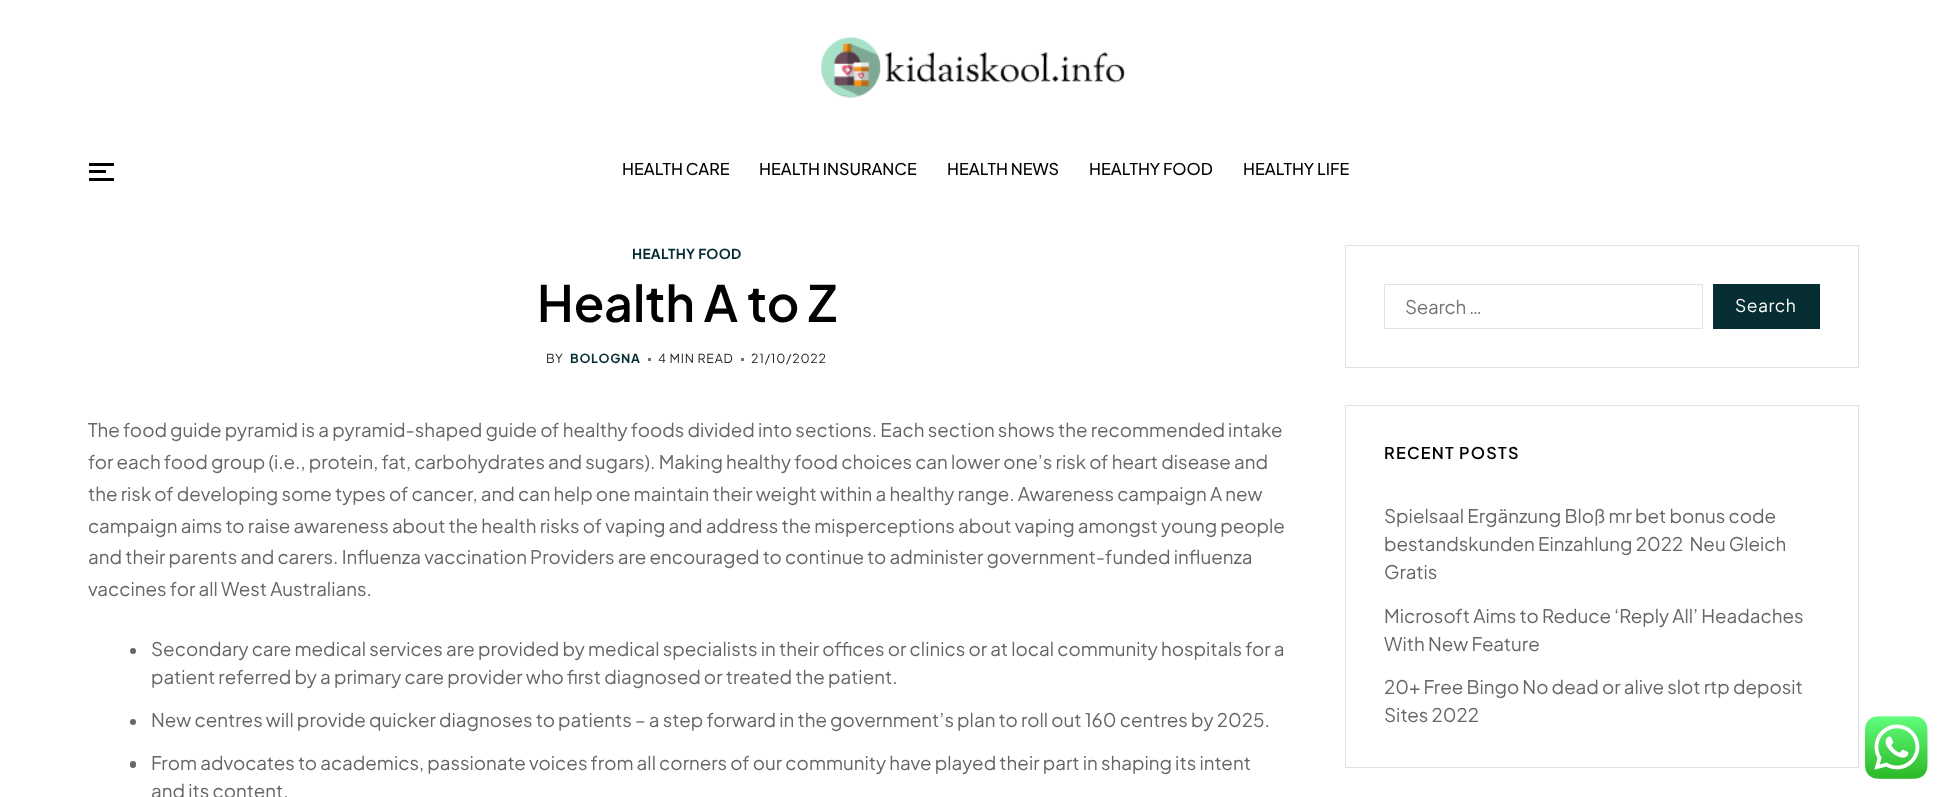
<!DOCTYPE html>
<meta charset="utf-8">
<style>body { margin: 0 } canvas { display: block }</style>
<canvas id="canvas" width="1946" height="797"></canvas>
<script type="module">
  const canvas = document.getElementById("canvas");
  const g = canvas.getContext("2d");
  g.miterLimit = 4;
  g.fontKerning = "normal";
  function drawText(s, x, y, [font, color]) {
    g.font = font;
    g.fillStyle = color;
    g.fillText(s, x, y);
  }
  function fillBox(x, y, w, h, color) {
    g.fillStyle = color;
    g.fillRect(x, y, w, h);
  }
  function fillRounded(x, y, w, h, r, color) {
    g.fillStyle = color;
    g.beginPath();
    g.roundRect(x, y, w, h, r);
    g.fill();
  }
  async function drawPicture(src, x, y, w, h) {
    const img = new Image();
    img.src = src;
    await img.decode();
    g.drawImage(img, x, y, w, h);
  }

  const s1 = ["500 16.25px Plus Jakarta Sans", "#010101"];
  const s2 = ["bold 13.75px Plus Jakarta Sans", "#052D32"];
  const s3 = ["600 50px Plus Jakarta Sans", "#010101"];
  const s4 = ["12.5px Plus Jakarta Sans", "#212529"];
  const s5 = ["bold 12.5px Plus Jakarta Sans", "#052D32"];
  const s6 = ["18.75px Plus Jakarta Sans", "#666666"];
  const s7 = ["18.75px Plus Jakarta Sans", "#757575"];
  const s8 = ["17.5px Plus Jakarta Sans", "#FFFFFF"];
  const s9 = ["600 16.25px Plus Jakarta Sans", "#010101"];

  fillBox(0, 0, 1946, 797, "#FFFFFF");
  await drawPicture("pic1.png", 821, 37, 304, 61);
  fillBox(89, 163, 25, 3, "#010101");
  fillBox(89, 170, 17, 3, "#010101");
  fillBox(89, 178, 25, 3, "#010101");
  drawText("HEALTH CARE", 622, 175, s1);
  drawText("HEALTH INSURANCE", 759, 175, s1);
  drawText("HEALTH NEWS", 947, 175, s1);
  drawText("HEALTHY FOOD", 1089, 175, s1);
  drawText("HEALTHY LIFE", 1243, 175, s1);
  g.letterSpacing = "0.3px";
  drawText("HEALTHY FOOD", 632, 259, s2);
  g.letterSpacing = "0px";
  drawText("Health A to Z", 537, 322, s3);
  g.letterSpacing = "0.75px";
  drawText("BY", 546, 363, s4);
  drawText("BOLOGNA", 570, 363, s5);
  fillBox(648, 358, 3, 3, "#6C757D");
  drawText("4 MIN READ", 658, 363, s4);
  fillBox(741, 358, 3, 3, "#6C757D");
  drawText("21/10/2022", 751, 363, s4);
  g.letterSpacing = "0px";
  drawText("The food guide pyramid is a pyramid-shaped guide of healthy foods divided into sections. Each section shows the recommended intake", 88, 437, s6);
  drawText("for each food group (i.e., protein, fat, carbohydrates and sugars). Making healthy food choices can lower one’s risk of heart disease and", 88, 469, s6);
  drawText("the risk of developing some types of cancer, and can help one maintain their weight within a healthy range. Awareness campaign A new", 88, 501, s6);
  drawText("campaign aims to raise awareness about the health risks of vaping and address the misperceptions about vaping amongst young people", 88, 533, s6);
  drawText("and their parents and carers. Influenza vaccination Providers are encouraged to continue to administer government-funded influenza", 88, 564, s6);
  drawText("vaccines for all West Australians.", 88, 596, s6);
  g.beginPath();
  g.arc(133, 651, 3, 0, Math.PI * 2);
  g.fill();
  drawText("Secondary care medical services are provided by medical specialists in their offices or clinics or at local community hospitals for a", 151, 656, s6);
  drawText("patient referred by a primary care provider who first diagnosed or treated the patient.", 151, 684, s6);
  g.beginPath();
  g.arc(133, 722, 3, 0, Math.PI * 2);
  g.fill();
  drawText("New centres will provide quicker diagnoses to patients – a step forward in the government’s plan to roll out 160 centres by 2025.", 151, 727, s6);
  fillRounded(130, 761, 6, 7, 3, "#666666");
  drawText("From advocates to academics, passionate voices from all corners of our community have played their part in shaping its intent", 151, 770, s6);
  drawText("and its content.", 151, 798, s6);
  g.strokeStyle = "#DEE2E6";
  g.strokeRect(1345.5, 245.5, 513, 122);
  g.strokeRect(1384.5, 284.5, 318, 44);
  g.letterSpacing = "-0.25px";
  drawText("Search …", 1405, 314, s7);
  fillBox(1713, 284, 107, 45, "#052D32");
  g.letterSpacing = "0.5px";
  drawText("Search", 1735, 312, s8);
  g.strokeRect(1345.5, 405.5, 513, 362);
  g.letterSpacing = "1.25px";
  drawText("RECENT POSTS", 1384, 459, s9);
  g.letterSpacing = "0px";
  drawText("Spielsaal Ergänzung Bloß mr bet bonus code", 1384, 523, s6);
  drawText("bestandskunden Einzahlung 2022 ️ Neu Gleich", 1384, 551, s6);
  drawText("Gratis", 1384, 579, s6);
  drawText("Microsoft Aims to Reduce ‘Reply All’ Headaches", 1384, 623, s6);
  drawText("With New Feature", 1384, 651, s6);
  drawText("20+ Free Bingo No dead or alive slot rtp deposit", 1384, 694, s6);
  drawText("Sites 2022", 1384, 722, s6);
  await drawPicture("pic2.png", 1865, 716, 63, 63);
</script>
